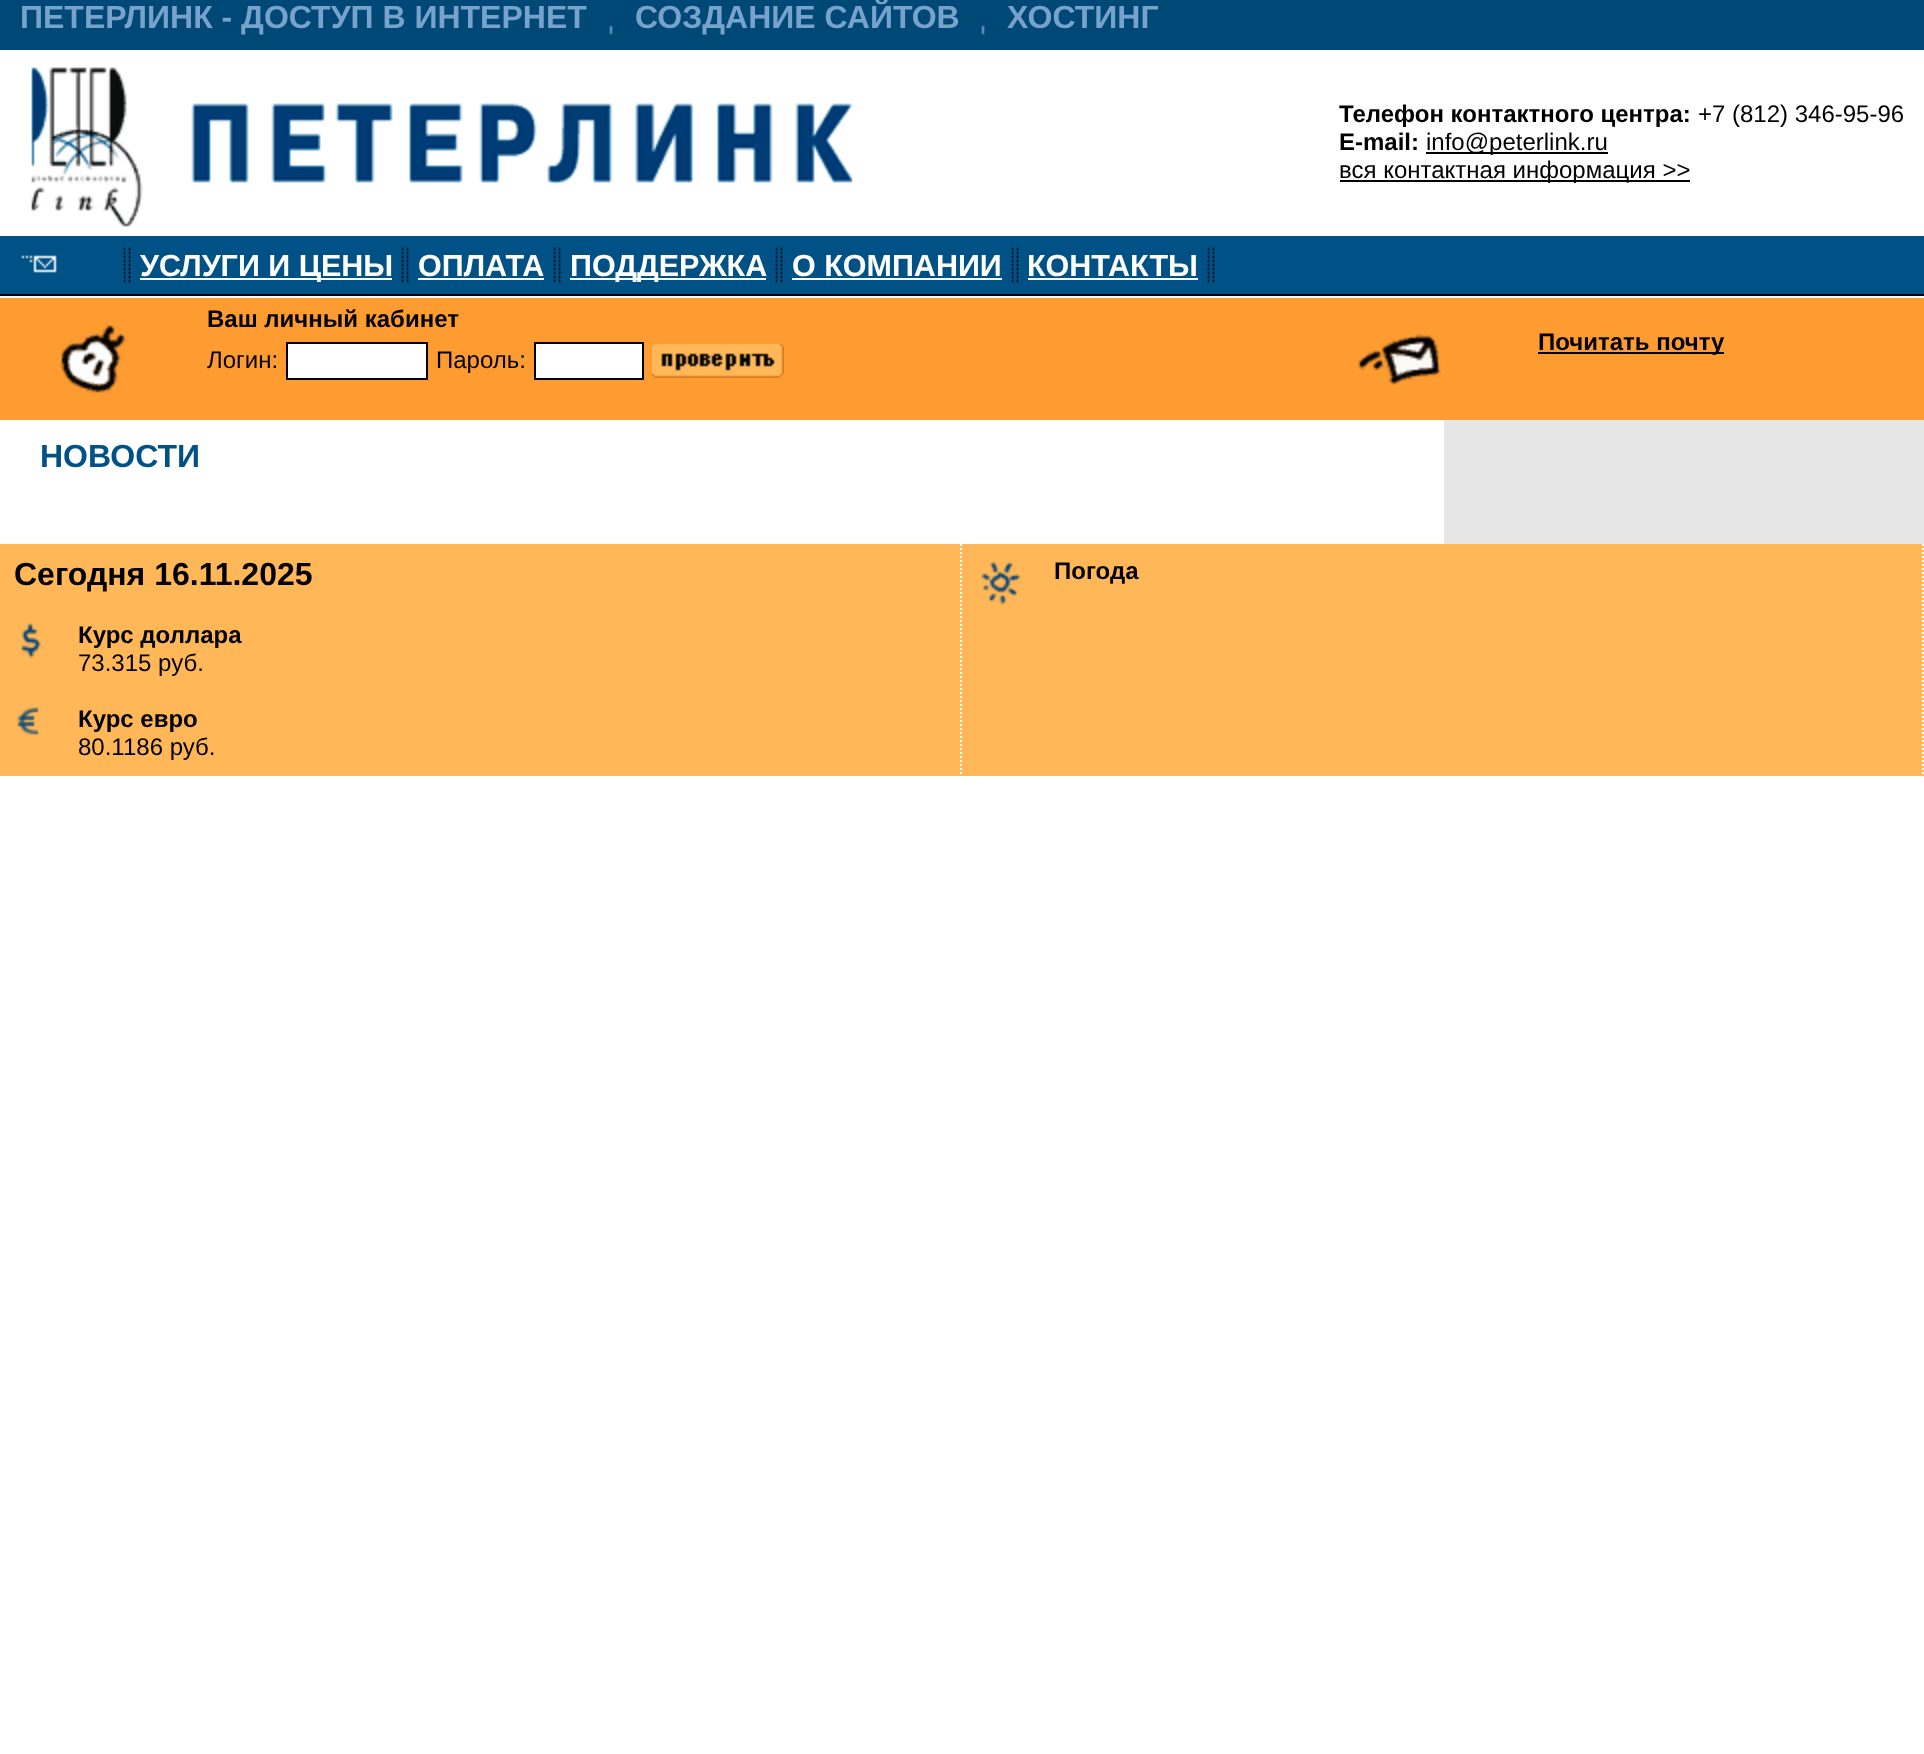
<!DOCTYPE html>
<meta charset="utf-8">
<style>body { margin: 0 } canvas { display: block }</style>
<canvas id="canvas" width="1924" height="1754"></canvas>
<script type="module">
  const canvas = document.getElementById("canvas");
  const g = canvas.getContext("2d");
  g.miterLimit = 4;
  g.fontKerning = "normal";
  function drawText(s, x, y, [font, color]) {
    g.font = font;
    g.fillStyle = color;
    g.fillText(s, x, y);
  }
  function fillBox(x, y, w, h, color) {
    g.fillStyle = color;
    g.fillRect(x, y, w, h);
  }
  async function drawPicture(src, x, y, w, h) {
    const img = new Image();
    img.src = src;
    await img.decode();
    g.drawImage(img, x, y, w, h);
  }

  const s1 = ["bold 32px Liberation Sans", "#76A2CB"];
  const s2 = ["bold 24px Liberation Sans", "#000000"];
  const s3 = ["24px Liberation Sans", "#000000"];
  const s4 = ["bold 30.5px Liberation Sans", "#FFFFFF"];
  const s5 = ["bold 32px Liberation Sans", "#005286"];
  const s6 = ["bold 32px Liberation Sans", "#000000"];

  fillBox(0, 0, 1924, 1754, "#FFFFFF");
  fillBox(0, 0, 1924, 50, "#004876");
  drawText("ПЕТЕРЛИНК - ДОСТУП В ИНТЕРНЕТ", 20, 28, s1);
  drawText("СОЗДАНИЕ САЙТОВ", 635, 28, s1);
  drawText("ХОСТИНГ", 1007, 28, s1);
  await drawPicture("pic1.png", 609, 25, 4, 10);
  await drawPicture("pic1.png", 981, 25, 4, 10);
  await drawPicture("pic2.png", 31, 67, 112, 160);
  await drawPicture("pic3.png", 191, 103, 662, 82);
  drawText("Телефон контактного центра:", 1339, 122, s2);
  drawText("+7 (812) 346-95-96", 1698, 122, s3);
  drawText("E-mail:", 1339, 150, s2);
  fillBox(1426, 152, 182, 2, "#000000");
  drawText("info@peterlink.ru", 1426, 150, s3);
  fillBox(1340, 180, 350, 2, "#000000");
  drawText("вся контактная информация >>", 1339, 178, s3);
  fillBox(0, 236, 1924, 58, "#005286");
  await drawPicture("pic4.png", 21, 255, 36, 18);
  await drawPicture("pic5.png", 123, 247, 8, 36);
  fillBox(140, 278, 252, 2, "#FFFFFF");
  drawText("УСЛУГИ И ЦЕНЫ", 140, 276, s4);
  await drawPicture("pic5.png", 401, 247, 8, 36);
  drawText("ОПЛАТА", 418, 276, s4);
  fillBox(418, 278, 126, 2, "#FFFFFF");
  await drawPicture("pic5.png", 553, 247, 8, 36);
  fillBox(570, 278, 196, 2, "#FFFFFF");
  drawText("ПОДДЕРЖКА", 570, 276, s4);
  await drawPicture("pic5.png", 775, 247, 8, 36);
  drawText("О КОМПАНИИ", 792, 276, s4);
  fillBox(792, 278, 210, 2, "#FFFFFF");
  await drawPicture("pic5.png", 1011, 247, 8, 36);
  drawText("КОНТАКТЫ", 1027, 276, s4);
  fillBox(1028, 278, 170, 2, "#FFFFFF");
  await drawPicture("pic5.png", 1207, 247, 8, 36);
  fillBox(0, 294, 1924, 2, "#000000");
  fillBox(0, 298, 1924, 122, "#FF9C31");
  await drawPicture("pic6.png", 59, 323, 68, 70);
  drawText("Ваш личный кабинет", 207, 327, s2);
  drawText("Логин:", 207, 368, s3);
  g.fillStyle = "#FFFFFF";
  g.beginPath();
  g.rect(287, 343, 140, 36);
  g.fill();
  g.strokeStyle = "#000000";
  g.lineWidth = 2;
  g.stroke();
  drawText("Пароль:", 436, 368, s3);
  g.fillStyle = "#FFFFFF";
  g.beginPath();
  g.rect(535, 343, 108, 36);
  g.fill();
  g.stroke();
  await drawPicture("pic7.png", 652, 344, 132, 34);
  await drawPicture("pic8.png", 1357, 333, 84, 52);
  fillBox(1538, 352, 186, 2, "#000000");
  drawText("Почитать почту", 1538, 350, s2);
  drawText("НОВОСТИ", 40, 467, s5);
  fillBox(1444, 420, 480, 124, "#E6E6E6");
  fillBox(0, 544, 1924, 232, "#FFB757");
  g.beginPath();
  g.moveTo(961, 544);
  g.lineTo(961, 776);
  g.strokeStyle = "#FFFFFF";
  g.setLineDash([2, 2]);
  g.stroke();
  drawText("Сегодня 16.11.2025", 14, 585, s6);
  await drawPicture("pic9.png", 21, 623, 20, 36);
  drawText("Курс доллара", 78, 643, s2);
  drawText("73.315 руб.", 78, 671, s3);
  await drawPicture("pic10.png", 17, 707, 22, 29);
  drawText("Курс евро", 78, 727, s2);
  drawText("80.1186 руб.", 78, 755, s3);
  g.beginPath();
  g.moveTo(1923, 544);
  g.lineTo(1923, 776);
  g.stroke();
  await drawPicture("pic11.png", 981, 561, 40, 44);
  drawText("Погода", 1054, 579, s2);
</script>
